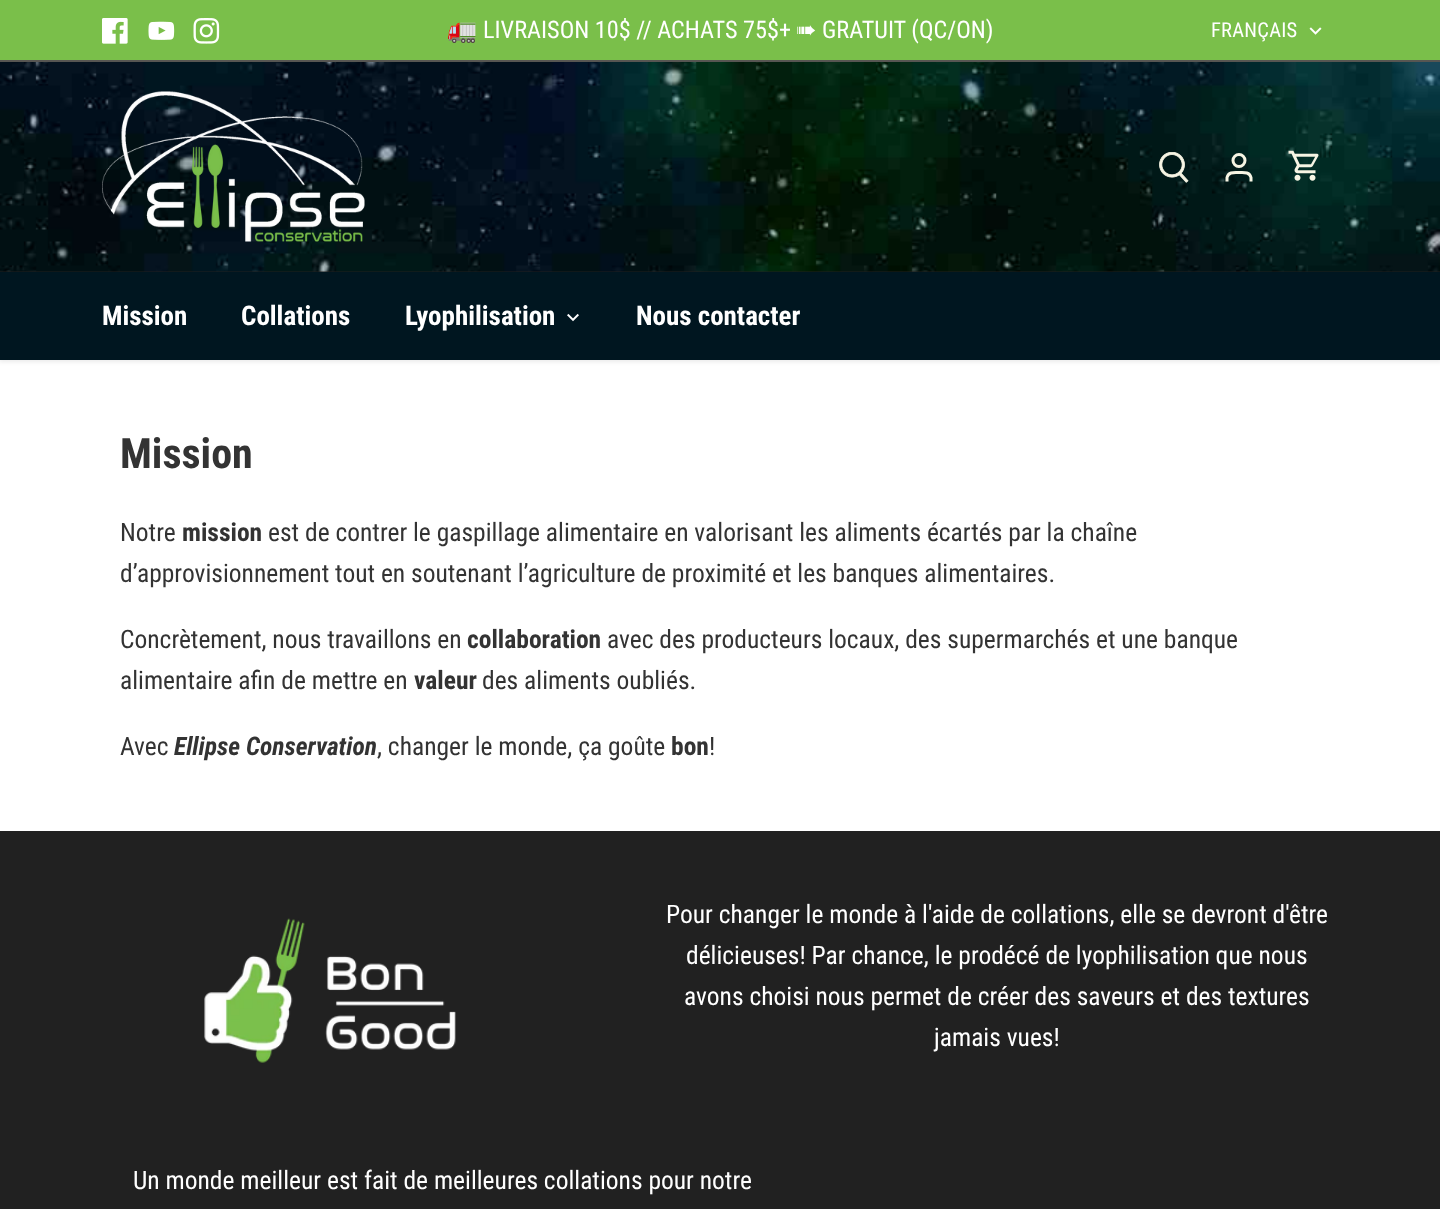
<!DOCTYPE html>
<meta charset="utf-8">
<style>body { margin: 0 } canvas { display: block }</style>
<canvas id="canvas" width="1440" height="1209"></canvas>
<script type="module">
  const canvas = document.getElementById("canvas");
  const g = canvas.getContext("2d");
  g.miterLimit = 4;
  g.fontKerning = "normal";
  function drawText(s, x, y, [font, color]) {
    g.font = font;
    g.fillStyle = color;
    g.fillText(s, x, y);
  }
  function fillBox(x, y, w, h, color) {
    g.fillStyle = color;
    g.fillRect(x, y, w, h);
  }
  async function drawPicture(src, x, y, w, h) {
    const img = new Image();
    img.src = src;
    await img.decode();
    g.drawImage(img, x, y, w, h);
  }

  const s1 = ["24.25px Noto Color Emoji", "#FFFFFF"];
  const s2 = ["24.25px Roboto Condensed", "#FFFFFF"];
  const s3 = ["24.25px DejaVu Sans", "#FFFFFF"];
  const s4 = ["20.5px Roboto Condensed", "#FFFFFF"];
  const s5 = ["bold 27px Roboto Condensed", "#FFFFFF"];
  const s6 = ["bold 42px Roboto Condensed", "#333333"];
  const s7 = ["25.5px Roboto Condensed", "#333333"];
  const s8 = ["bold 25.5px Roboto Condensed", "#333333"];
  const s9 = ["italic bold 25.5px Roboto Condensed", "#333333"];
  const s10 = ["25.5px Roboto Condensed", "#FFFFFF"];

  fillBox(0, 0, 1440, 1209, "#FFFFFF");
  g.fillStyle = "rgba(0, 0, 0, 0.08)";
  g.filter = "blur(2px)";
  g.beginPath();
  g.rect(-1, 60, 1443, 302);
  g.fill();
  g.filter = "none";
  fillBox(0, 0, 1440, 60, "#7ABF4A");
  fillBox(0, 60, 1440, 2, "#575652");
  await drawPicture("pic1.png", 102, 18, 26, 26);
  await drawPicture("pic2.png", 148, 21, 27, 19);
  await drawPicture("pic3.png", 193, 18, 27, 26);
  drawText("🚛", 447, 38, s1);
  drawText("LIVRAISON 10$ // ACHATS 75$+", 483, 38, s2);
  drawText("➠", 796, 38, s3);
  drawText("GRATUIT (QC/ON)", 822, 38, s2);
  g.letterSpacing = "0.25px";
  drawText("FRANÇAIS", 1211, 37, s4);
  await drawPicture("pic4.png", 1309, 27, 13, 8);
  fillBox(0, 272, 1440, 88, "#001620");
  fillBox(0, 271, 1440, 1, "#212121");
  await drawPicture("pic5.png", 0, 62, 1440, 210);
  await drawPicture("pic6.png", 102, 91, 263, 151);
  await drawPicture("pic7.png", 1159, 152, 30, 31);
  g.beginPath();
  g.arc(1239, 160.5, 6, 0, Math.PI * 2);
  g.strokeStyle = "#F7F5E4";
  g.lineWidth = 3;
  g.stroke();
  g.beginPath();
  g.moveTo(1251, 181.5);
  g.lineTo(1251, 177.5);
  g.bezierCurveTo(1249.5, 171.5, 1243.5, 172.5, 1239, 172.5);
  g.bezierCurveTo(1234.5, 172.5, 1228.5, 171.5, 1227, 177.5);
  g.lineTo(1227, 181.5);
  g.stroke();
  await drawPicture("pic8.png", 1288, 150, 31, 31);
  g.letterSpacing = "0px";
  drawText("Mission", 102, 325, s5);
  drawText("Collations", 241, 325, s5);
  drawText("Lyophilisation", 405, 325, s5);
  await drawPicture("pic9.png", 567, 313, 12, 9);
  drawText("Nous contacter", 636, 325, s5);
  drawText("Mission", 120, 468, s6);
  drawText("Notre", 120, 541, s7);
  drawText("mission", 182, 541, s8);
  drawText("est de contrer le gaspillage alimentaire en valorisant les aliments écartés par la chaîne", 268, 541, s7);
  drawText("d’approvisionnement tout en soutenant l’agriculture de proximité et les banques alimentaires.", 120, 582, s7);
  drawText("Concrètement, nous travaillons en", 120, 648, s7);
  drawText("collaboration", 467, 648, s8);
  drawText("avec des producteurs locaux, des supermarchés et une banque", 607, 648, s7);
  drawText("alimentaire afin de mettre en", 120, 689, s7);
  drawText("valeur", 414, 689, s8);
  drawText("des aliments oubliés.", 482, 689, s7);
  drawText("Avec", 120, 755, s7);
  drawText("Ellipse Conservation", 174, 755, s9);
  drawText(", changer le monde, ça goûte", 377, 755, s7);
  drawText("bon", 671, 755, s8);
  drawText("!", 709, 755, s7);
  fillBox(0, 831, 1440, 378, "#212121");
  await drawPicture("pic10.png", 204, 918, 252, 145);
  drawText("Pour changer le monde à l'aide de collations, elle se devront d'être", 666, 923, s10);
  drawText("délicieuses! Par chance, le prodécé de lyophilisation que nous", 686, 964, s10);
  drawText("avons choisi nous permet de créer des saveurs et des textures", 684, 1005, s10);
  drawText("jamais vues!", 934, 1046, s10);
  drawText("Un monde meilleur est fait de meilleures collations pour notre", 133, 1189, s10);
</script>
